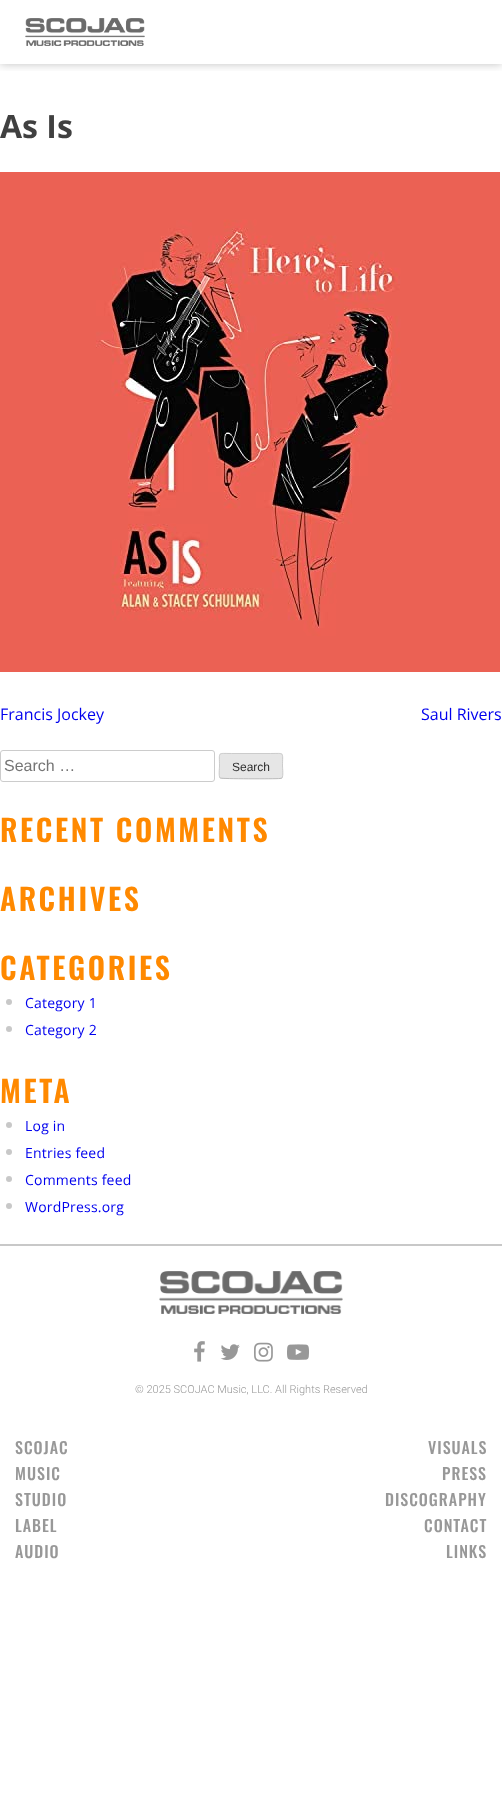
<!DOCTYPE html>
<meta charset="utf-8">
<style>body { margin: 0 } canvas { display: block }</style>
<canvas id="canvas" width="502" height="1815"></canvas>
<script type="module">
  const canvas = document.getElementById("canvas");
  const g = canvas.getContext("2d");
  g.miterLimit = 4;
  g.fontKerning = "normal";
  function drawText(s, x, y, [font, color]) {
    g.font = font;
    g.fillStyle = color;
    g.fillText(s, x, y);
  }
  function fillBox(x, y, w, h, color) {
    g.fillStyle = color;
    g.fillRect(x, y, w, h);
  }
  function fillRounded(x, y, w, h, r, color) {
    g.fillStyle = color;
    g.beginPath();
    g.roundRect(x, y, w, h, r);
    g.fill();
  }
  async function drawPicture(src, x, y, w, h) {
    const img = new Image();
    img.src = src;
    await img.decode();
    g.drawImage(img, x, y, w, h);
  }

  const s1 = ["bold 32px Open Sans", "#404040"];
  const s2 = ["16px Open Sans", "#0000EE"];
  const s3 = ["16px Liberation Sans", "#757575"];
  const s4 = ["12px Liberation Sans", "#2E2E2E"];
  const s5 = ["600 30px Oswald", "#FF8900"];
  const s6 = ["14px Open Sans", "#0000EE"];
  const s7 = ["300 11px Roboto", "#989898"];
  const s8 = ["500 16px Oswald", "#989898"];

  fillBox(0, 0, 502, 1815, "#FFFFFF");
  g.save();
  g.beginPath();
  g.rect(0, 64, 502, 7);
  g.clip();
  g.fillStyle = "rgba(0, 0, 0, 0.25)";
  g.filter = "blur(5px)";
  g.beginPath();
  g.rect(0, 0, 502, 64);
  g.fill();
  g.filter = "none";
  g.restore();
  await drawPicture("pic1.png", 25, 18, 120, 28);
  drawText("As Is", 0, 138, s1);
  await drawPicture("pic2.png", 0, 172, 500, 500);
  drawText("Francis Jockey", 0, 720, s2);
  drawText("Saul Rivers", 421, 720, s2);
  g.beginPath();
  g.roundRect(0.5, 750.5, 214, 31, 2.5);
  g.strokeStyle = "#CCCCCC";
  g.stroke();
  drawText("Search …", 4, 771, s3);
  fillRounded(219, 753, 64, 26, 3, "#E6E6E6");
  g.beginPath();
  g.moveTo(282, 778);
  g.lineTo(280, 778.5);
  g.bezierCurveTo(275, 779, 221.5, 779, 220.5, 778);
  g.lineTo(220, 778);
  g.strokeStyle = "#BBBBBB";
  g.stroke();
  g.beginPath();
  g.moveTo(220, 778);
  g.bezierCurveTo(218.5, 776, 219.5, 768.5, 219.5, 766);
  g.bezierCurveTo(219.5, 751.5, 217, 753.5, 231.5, 753.5);
  g.lineTo(270.5, 753.5);
  g.bezierCurveTo(285, 753.5, 282.5, 751.5, 282.5, 766);
  g.bezierCurveTo(282.5, 768.5, 283.5, 776, 282, 778);
  g.strokeStyle = "#CCCCCC";
  g.stroke();
  drawText("Search", 232, 771, s4);
  g.letterSpacing = "2.6px";
  drawText("RECENT COMMENTS", 0, 842, s5);
  drawText("ARCHIVES", 0, 911, s5);
  drawText("CATEGORIES", 0, 980, s5);
  g.fillStyle = "#C8C8C8";
  g.beginPath();
  g.arc(9, 1002, 3, 0, Math.PI * 2);
  g.fill();
  g.letterSpacing = "0.2px";
  drawText("Category 1", 25, 1008, s6);
  g.fillStyle = "#C8C8C8";
  g.beginPath();
  g.arc(9, 1029, 3, 0, Math.PI * 2);
  g.fill();
  drawText("Category 2", 25, 1035, s6);
  g.letterSpacing = "2.6px";
  drawText("META", 0, 1103, s5);
  g.fillStyle = "#C8C8C8";
  g.beginPath();
  g.arc(9, 1125, 3, 0, Math.PI * 2);
  g.fill();
  g.letterSpacing = "0.2px";
  drawText("Log in", 25, 1131, s6);
  g.fillStyle = "#C8C8C8";
  g.beginPath();
  g.arc(9, 1152, 3, 0, Math.PI * 2);
  g.fill();
  drawText("Entries feed", 25, 1158, s6);
  g.fillStyle = "#C8C8C8";
  g.beginPath();
  g.arc(9, 1179, 3, 0, Math.PI * 2);
  g.fill();
  drawText("Comments feed", 25, 1185, s6);
  g.fillStyle = "#C8C8C8";
  g.beginPath();
  g.arc(9, 1206, 3, 0, Math.PI * 2);
  g.fill();
  drawText("WordPress.org", 25, 1212, s6);
  fillBox(0, 1244, 502, 2, "#C8C8C8");
  await drawPicture("pic3.png", 159, 1271, 184, 43);
  await drawPicture("pic4.png", 194, 1341, 11, 21);
  await drawPicture("pic5.png", 220, 1344, 20, 16);
  await drawPicture("pic6.png", 254, 1342, 19, 20);
  await drawPicture("pic7.png", 287, 1344, 22, 16);
  g.letterSpacing = "0px";
  drawText("© 2025 SCOJAC Music, LLC. All Rights Reserved", 135, 1393, s7);
  g.letterSpacing = "1px";
  drawText("SCOJAC", 15, 1454, s8);
  drawText("MUSIC", 15, 1480, s8);
  drawText("STUDIO", 15, 1506, s8);
  drawText("LABEL", 15, 1532, s8);
  drawText("AUDIO", 15, 1558, s8);
  drawText("VISUALS", 428, 1454, s8);
  drawText("PRESS", 442, 1480, s8);
  drawText("DISCOGRAPHY", 385, 1506, s8);
  drawText("CONTACT", 424, 1532, s8);
  drawText("LINKS", 446, 1558, s8);
</script>
